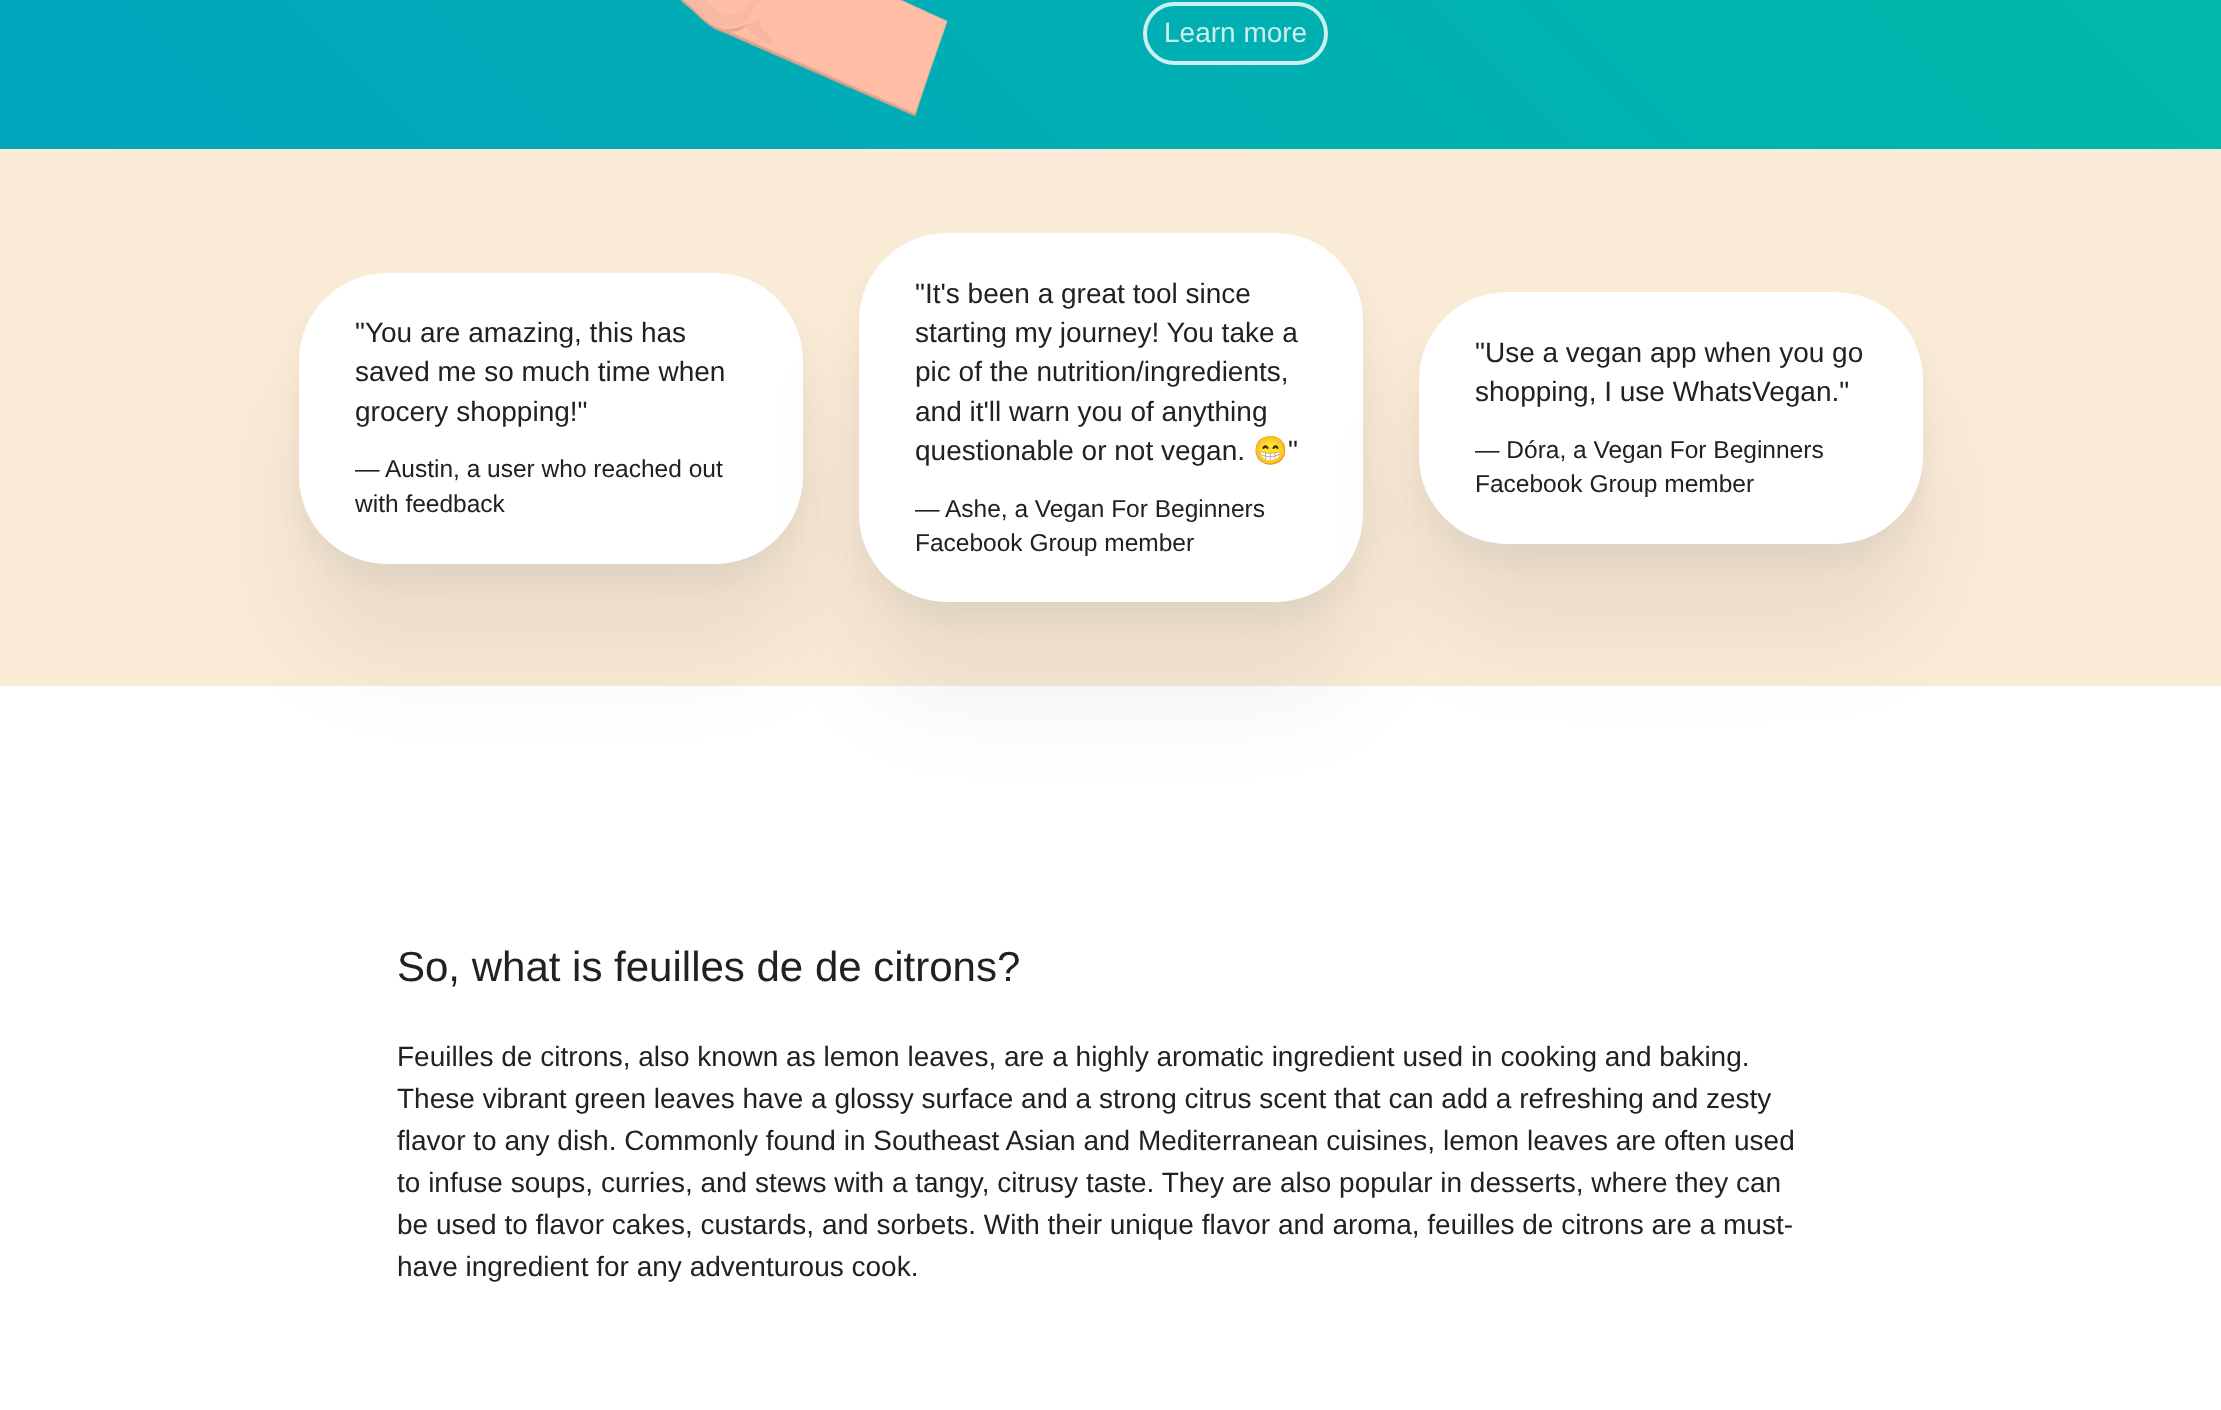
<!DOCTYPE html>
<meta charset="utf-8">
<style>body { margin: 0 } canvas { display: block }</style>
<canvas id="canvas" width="2221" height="1410"></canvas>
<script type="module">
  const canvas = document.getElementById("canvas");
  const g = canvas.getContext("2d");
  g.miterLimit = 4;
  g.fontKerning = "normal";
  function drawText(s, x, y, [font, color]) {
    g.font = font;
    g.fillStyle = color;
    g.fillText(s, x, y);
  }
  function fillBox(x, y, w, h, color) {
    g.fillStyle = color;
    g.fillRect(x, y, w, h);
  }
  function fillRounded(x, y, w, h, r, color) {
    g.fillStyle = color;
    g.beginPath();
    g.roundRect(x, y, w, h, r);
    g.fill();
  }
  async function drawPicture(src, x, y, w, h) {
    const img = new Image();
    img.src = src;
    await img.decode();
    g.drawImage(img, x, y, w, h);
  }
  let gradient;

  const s1 = ["28px Liberation Sans", "#CCEFF0"];
  const s2 = ["28px Liberation Sans", "#212121"];
  const s3 = ["24.5px Liberation Sans", "#212121"];
  const s4 = ["28px Noto Color Emoji", "#212121"];
  const s5 = ["42px Liberation Sans", "#212121"];

  fillBox(0, 0, 2221, 1410, "#FFFFFF");
  gradient = g.createLinearGradient(377, 526, 1845, -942);
  gradient.addColorStop(0, "#00A4BD");
  gradient.addColorStop(1, "#00BDA5");
  g.fillStyle = gradient;
  g.fillRect(0, 0, 2221, 149);
  await drawPicture("pic1.png", 679, 0, 269, 117);
  g.beginPath();
  g.roundRect(1145, 4, 181, 59, 29.5);
  g.strokeStyle = "#CCEFF0";
  g.lineWidth = 4;
  g.stroke();
  drawText("Learn more", 1164, 42, s1);
  fillBox(0, 149, 2221, 537, "#FAEBD7");
  g.fillStyle = "rgba(0, 0, 0, 0.04)";
  g.filter = "blur(11.5px)";
  g.beginPath();
  g.roundRect(299, 294, 504, 291, 88);
  g.fill();
  g.filter = "none";
  g.fillStyle = "rgba(0, 0, 0, 0.06)";
  g.filter = "blur(48px)";
  g.beginPath();
  g.roundRect(299, 368, 504, 290, 88);
  g.fill();
  g.filter = "none";
  fillRounded(299, 273, 504, 291, 88, "#FFFFFF");
  drawText("\"You are amazing, this has", 355, 342, s2);
  drawText("saved me so much time when", 355, 381, s2);
  drawText("grocery shopping!\"", 355, 421, s2);
  drawText("— Austin, a user who reached out", 355, 477, s3);
  drawText("with feedback", 355, 512, s3);
  g.fillStyle = "rgba(0, 0, 0, 0.04)";
  g.filter = "blur(11.5px)";
  g.beginPath();
  g.roundRect(859, 254, 504, 369, 88);
  g.fill();
  g.filter = "none";
  g.fillStyle = "rgba(0, 0, 0, 0.06)";
  g.filter = "blur(48px)";
  g.beginPath();
  g.roundRect(859, 327, 504, 370, 88);
  g.fill();
  g.filter = "none";
  fillRounded(859, 233, 504, 369, 88, "#FFFFFF");
  drawText("\"It's been a great tool since", 915, 303, s2);
  drawText("starting my journey! You take a", 915, 342, s2);
  drawText("pic of the nutrition/ingredients,", 915, 381, s2);
  drawText("and it'll warn you of anything", 915, 421, s2);
  drawText("questionable or not vegan.", 915, 460, s2);
  drawText("😁", 1253, 460, s4);
  drawText("\"", 1288, 460, s2);
  drawText("— Ashe, a Vegan For Beginners", 915, 517, s3);
  drawText("Facebook Group member", 915, 551, s3);
  g.fillStyle = "rgba(0, 0, 0, 0.04)";
  g.filter = "blur(11.5px)";
  g.beginPath();
  g.roundRect(1419, 313, 504, 252, 88);
  g.fill();
  g.filter = "none";
  g.fillStyle = "rgba(0, 0, 0, 0.06)";
  g.filter = "blur(48px)";
  g.beginPath();
  g.roundRect(1419, 387, 504, 252, 88);
  g.fill();
  g.filter = "none";
  fillRounded(1419, 292, 504, 252, 88, "#FFFFFF");
  drawText("\"Use a vegan app when you go", 1475, 362, s2);
  drawText("shopping, I use WhatsVegan.\"", 1475, 401, s2);
  drawText("— Dóra, a Vegan For Beginners", 1475, 458, s3);
  drawText("Facebook Group member", 1475, 492, s3);
  drawText("So, what is feuilles de de citrons?", 397, 981, s5);
  drawText("Feuilles de citrons, also known as lemon leaves, are a highly aromatic ingredient used in cooking and baking.", 397, 1066, s2);
  drawText("These vibrant green leaves have a glossy surface and a strong citrus scent that can add a refreshing and zesty", 397, 1108, s2);
  drawText("flavor to any dish. Commonly found in Southeast Asian and Mediterranean cuisines, lemon leaves are often used", 397, 1150, s2);
  drawText("to infuse soups, curries, and stews with a tangy, citrusy taste. They are also popular in desserts, where they can", 397, 1192, s2);
  drawText("be used to flavor cakes, custards, and sorbets. With their unique flavor and aroma, feuilles de citrons are a must-", 397, 1234, s2);
  drawText("have ingredient for any adventurous cook.", 397, 1276, s2);
</script>
